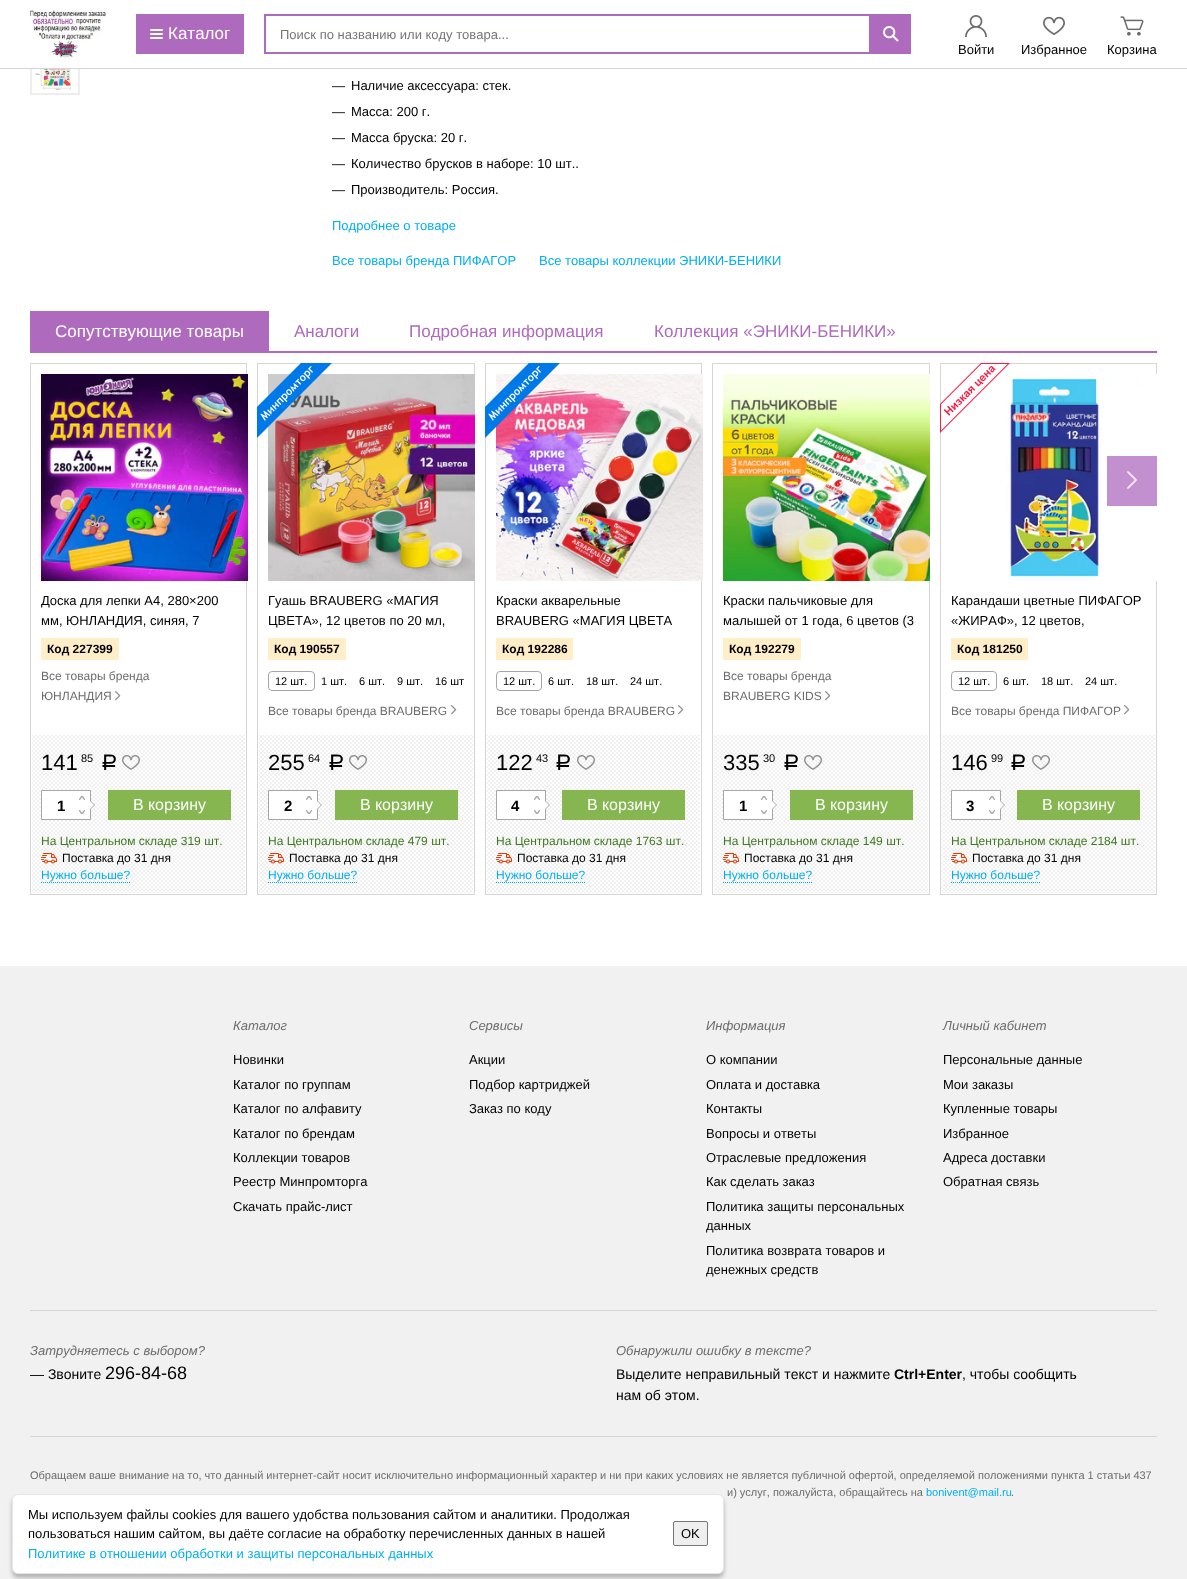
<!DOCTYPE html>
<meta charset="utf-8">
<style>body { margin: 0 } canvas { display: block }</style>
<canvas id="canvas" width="1187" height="1579"></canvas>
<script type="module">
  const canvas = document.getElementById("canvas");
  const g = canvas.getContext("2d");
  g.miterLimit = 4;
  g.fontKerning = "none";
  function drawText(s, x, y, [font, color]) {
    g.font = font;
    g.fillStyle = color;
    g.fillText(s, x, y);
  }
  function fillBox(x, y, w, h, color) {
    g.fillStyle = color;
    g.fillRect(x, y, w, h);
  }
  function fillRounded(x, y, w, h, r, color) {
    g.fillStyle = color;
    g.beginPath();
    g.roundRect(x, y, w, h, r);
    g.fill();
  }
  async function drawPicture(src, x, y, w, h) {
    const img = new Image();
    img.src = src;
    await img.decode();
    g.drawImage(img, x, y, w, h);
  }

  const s1 = ["17px Liberation Sans", "#FFFFFF"];
  const s2 = ["13px Liberation Sans", "#757575"];
  const s3 = ["13px Liberation Sans", "#000000"];
  const s4 = ["13px Liberation Sans", "#00AFF0"];
  const s5 = ["17px Liberation Sans", "#AE6BBD"];
  const s6 = ["bold 12px Liberation Sans", "#000000"];
  const s7 = ["12px Liberation Sans", "#6C6C6C"];
  const s8 = ["22px Liberation Sans", "#000000"];
  const s9 = ["11px Liberation Sans", "#000000"];
  const s10 = ["22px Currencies", "#000000"];
  const s11 = ["bold 15px Liberation Sans", "#000000"];
  const s12 = ["16px Liberation Sans", "#FFFFFF"];
  const s13 = ["12px Liberation Sans", "#3E791E"];
  const s14 = ["12px Liberation Sans", "#000000"];
  const s15 = ["12px Liberation Sans", "#00AFF0"];
  const s16 = ["italic 13px Liberation Sans", "#6C6C6C"];
  const s17 = ["14px Liberation Sans", "#000000"];
  const s18 = ["18px Liberation Sans", "#000000"];
  const s19 = ["bold 14px Liberation Sans", "#000000"];
  const s20 = ["11px Liberation Sans", "#6C6C6C"];
  const s21 = ["11px Liberation Sans", "#00AFF0"];

  fillBox(0, 0, 1187, 1579, "#FFFFFF");
  g.strokeStyle = "#EEEEEE";
  g.lineWidth = 2;
  g.strokeRect(31, 46, 48, 48);
  fillBox(30, 45, 50, 23, "#FFFFFF");
  fillBox(0, 68, 1187, 1, "#D6D6D6");
  await drawPicture("pic1.png", 30, 10, 76, 48);
  fillBox(136, 14, 108, 40, "#AE6BBD");
  fillRounded(150, 33, 13, 2, 1, "#FFFFFF");
  fillRounded(150, 29, 13, 2, 1, "#FFFFFF");
  fillRounded(150, 37, 13, 2, 1, "#FFFFFF");
  drawText("Каталог", 168, 39, s1);
  g.strokeStyle = "#AE6BBD";
  g.strokeRect(265, 15, 645, 38);
  drawText("Поиск по названию или коду товара...", 280, 39, s2);
  fillBox(869, 16, 40, 36, "#AE6BBD");
  await drawPicture("pic2.png", 883, 26, 16, 16);
  await drawPicture("pic3.png", 965, 15, 22, 22);
  drawText("Войти", 958, 54, s3);
  await drawPicture("pic4.png", 1043, 16, 22, 19);
  drawText("Избранное", 1021, 54, s3);
  await drawPicture("pic5.png", 1120, 16, 24, 20);
  drawText("Корзина", 1107, 54, s3);
  await drawPicture("pic6.png", 35, 69, 38, 21);
  drawText("—", 332, 90, s3);
  drawText("Наличие аксессуара: стек.", 351, 90, s3);
  drawText("—", 332, 116, s3);
  drawText("Масса: 200 г.", 351, 116, s3);
  drawText("—", 332, 142, s3);
  drawText("Масса бруска: 20 г.", 351, 142, s3);
  drawText("—", 332, 168, s3);
  drawText("Количество брусков в наборе: 10 шт..", 351, 168, s3);
  drawText("—", 332, 194, s3);
  drawText("Производитель: Россия.", 351, 194, s3);
  drawText("Подробнее о товаре", 332, 230, s4);
  drawText("Все товары бренда ПИФАГОР", 332, 265, s4);
  drawText("Все товары коллекции ЭНИКИ-БЕНИКИ", 539, 265, s4);
  fillBox(30, 351, 1127, 2, "#AE6BBD");
  fillBox(30, 311, 239, 40, "#AE6BBD");
  drawText("Сопутствующие товары", 55, 337, s1);
  drawText("Аналоги", 294, 337, s5);
  drawText("Подробная информация", 409, 337, s5);
  drawText("Коллекция «ЭНИКИ-БЕНИКИ»", 654, 337, s5);
  g.strokeStyle = "#D6D6D6";
  g.lineWidth = 1;
  g.strokeRect(940.5, 363.5, 216, 531);
  await drawPicture("pic22.png", 1006, 374, 151, 207);
  fillBox(1107, 456, 50, 50, "#C290CE");
  await drawPicture("pic7.png", 1127, 471, 10, 18);
  g.strokeRect(30.5, 363.5, 216, 531);
  await drawPicture("pic8.png", 41, 374, 207, 207);
  drawText("Доска для лепки А4, 280×200", 41, 605, s3);
  drawText("мм, ЮНЛАНДИЯ, синяя, 7", 41, 625, s3);
  fillBox(41, 638, 78, 22, "#FFEEC7");
  drawText("Код 227399", 47, 653, s6);
  drawText("Все товары бренда", 41, 680, s7);
  drawText("ЮНЛАНДИЯ", 41, 700, s7);
  await drawPicture("pic9.png", 115, 691, 6, 10);
  await drawPicture("pic10.png", 32, 735, 213, 158);
  drawText("141", 41, 770, s8);
  drawText("85", 81, 762, s9);
  drawText("руб", 99, 770, s10);
  await drawPicture("pic11.png", 122, 755, 18, 15);
  g.fillStyle = "#FFFFFF";
  g.beginPath();
  g.rect(41.5, 790.5, 49, 29);
  g.fill();
  g.strokeStyle = "#A6A6A6";
  g.stroke();
  drawText("1", 57, 811, s11);
  await drawPicture("pic12.png", 79, 796, 6, 4);
  await drawPicture("pic13.png", 79, 810, 6, 4);
  g.fillStyle = "#A6A6A6";
  g.beginPath();
  g.moveTo(90, 810);
  g.lineTo(90, 800);
  g.lineTo(95, 805);
  g.closePath();
  g.fill();
  g.fillStyle = "#FFFFFF";
  g.beginPath();
  g.moveTo(90, 809);
  g.lineTo(90, 801);
  g.lineTo(94, 805);
  g.closePath();
  g.fill();
  fillBox(108, 790, 123, 30, "#85B650");
  drawText("В корзину", 133, 810, s12);
  g.beginPath();
  g.moveTo(164, 800);
  g.bezierCurveTo(166.5, 797.5, 170.5, 797.5, 173, 800);
  g.strokeStyle = "#85B650";
  g.lineWidth = 4;
  g.stroke();
  drawText("На Центральном складе 319 шт.", 41, 845, s13);
  await drawPicture("pic14.png", 41, 853, 16, 11);
  drawText("Поставка до 31 дня", 62, 862, s14);
  drawText("Нужно больше?", 41, 879, s15);
  g.beginPath();
  g.moveTo(41, 882.5);
  g.lineTo(130, 882.5);
  g.strokeStyle = "#00AFF0";
  g.lineWidth = 1;
  g.setLineDash([1, 1]);
  g.stroke();
  g.strokeStyle = "#D6D6D6";
  g.setLineDash([]);
  g.strokeRect(257.5, 363.5, 217, 531);
  await drawPicture("pic16.png", 268, 374, 207, 207);
  await drawPicture("pic15.png", 257, 363, 75, 75);
  drawText("Гуашь BRAUBERG «МАГИЯ", 268, 605, s3);
  drawText("ЦВЕТА», 12 цветов по 20 мл,", 268, 625, s3);
  fillBox(268, 638, 78, 22, "#FFEEC7");
  drawText("Код 190557", 274, 653, s6);
  g.beginPath();
  g.roundRect(268.5, 671.5, 46, 19, 3.5);
  g.strokeStyle = "#A6A6A6";
  g.stroke();
  drawText("12 шт.", 275, 685, s9);
  drawText("1 шт.", 321, 685, s9);
  drawText("6 шт.", 359, 685, s9);
  drawText("9 шт.", 397, 685, s9);
  drawText("16 шт", 435, 685, s9);
  drawText("Все товары бренда BRAUBERG", 268, 715, s7);
  await drawPicture("pic9.png", 451, 705, 6, 10);
  await drawPicture("pic17.png", 259, 735, 214, 158);
  drawText("255", 268, 770, s8);
  drawText("64", 308, 762, s9);
  drawText("руб", 326, 770, s10);
  await drawPicture("pic11.png", 349, 755, 18, 15);
  g.fillStyle = "#FFFFFF";
  g.beginPath();
  g.rect(268.5, 790.5, 49, 29);
  g.fill();
  g.stroke();
  drawText("2", 284, 811, s11);
  await drawPicture("pic12.png", 306, 796, 6, 4);
  await drawPicture("pic13.png", 306, 810, 6, 4);
  g.fillStyle = "#A6A6A6";
  g.beginPath();
  g.moveTo(317, 810);
  g.lineTo(317, 800);
  g.lineTo(322, 805);
  g.closePath();
  g.fill();
  g.fillStyle = "#FFFFFF";
  g.beginPath();
  g.moveTo(317, 809);
  g.lineTo(317, 801);
  g.lineTo(321, 805);
  g.closePath();
  g.fill();
  fillBox(335, 790, 123, 30, "#85B650");
  drawText("В корзину", 360, 810, s12);
  g.beginPath();
  g.moveTo(391, 800);
  g.bezierCurveTo(393.5, 797.5, 398.5, 797.5, 401, 800);
  g.strokeStyle = "#85B650";
  g.lineWidth = 4;
  g.stroke();
  drawText("На Центральном складе 479 шт.", 268, 845, s13);
  await drawPicture("pic14.png", 268, 853, 16, 11);
  drawText("Поставка до 31 дня", 289, 862, s14);
  drawText("Нужно больше?", 268, 879, s15);
  g.beginPath();
  g.moveTo(268, 882.5);
  g.lineTo(358, 882.5);
  g.strokeStyle = "#00AFF0";
  g.lineWidth = 1;
  g.setLineDash([1, 1]);
  g.stroke();
  g.strokeStyle = "#D6D6D6";
  g.setLineDash([]);
  g.strokeRect(485.5, 363.5, 216, 531);
  await drawPicture("pic19.png", 496, 374, 207, 207);
  await drawPicture("pic18.png", 485, 363, 75, 75);
  drawText("Краски акварельные", 496, 605, s3);
  drawText("BRAUBERG «МАГИЯ ЦВЕТА", 496, 625, s3);
  fillBox(496, 638, 77, 22, "#FFEEC7");
  drawText("Код 192286", 502, 653, s6);
  g.beginPath();
  g.roundRect(496.5, 671.5, 45, 19, 3.5);
  g.strokeStyle = "#A6A6A6";
  g.stroke();
  drawText("12 шт.", 503, 685, s9);
  drawText("6 шт.", 548, 685, s9);
  drawText("18 шт.", 586, 685, s9);
  drawText("24 шт.", 630, 685, s9);
  drawText("Все товары бренда BRAUBERG", 496, 715, s7);
  await drawPicture("pic9.png", 678, 705, 6, 10);
  await drawPicture("pic10.png", 487, 735, 213, 158);
  drawText("122", 496, 770, s8);
  drawText("43", 536, 762, s9);
  drawText("руб", 553, 770, s10);
  await drawPicture("pic11.png", 577, 755, 18, 15);
  g.fillStyle = "#FFFFFF";
  g.beginPath();
  g.rect(496.5, 790.5, 49, 29);
  g.fill();
  g.stroke();
  drawText("4", 511, 811, s11);
  await drawPicture("pic12.png", 534, 796, 6, 4);
  await drawPicture("pic13.png", 534, 810, 6, 4);
  g.fillStyle = "#A6A6A6";
  g.beginPath();
  g.moveTo(545, 810);
  g.lineTo(545, 800);
  g.lineTo(550, 805);
  g.closePath();
  g.fill();
  g.fillStyle = "#FFFFFF";
  g.beginPath();
  g.moveTo(545, 809);
  g.lineTo(545, 801);
  g.lineTo(549, 805);
  g.closePath();
  g.fill();
  fillBox(562, 790, 123, 30, "#85B650");
  drawText("В корзину", 587, 810, s12);
  g.beginPath();
  g.moveTo(618, 800);
  g.bezierCurveTo(620.5, 797.5, 625.5, 797.5, 628, 800);
  g.strokeStyle = "#85B650";
  g.lineWidth = 4;
  g.stroke();
  drawText("На Центральном складе 1763 шт.", 496, 845, s13);
  await drawPicture("pic14.png", 496, 853, 16, 11);
  drawText("Поставка до 31 дня", 517, 862, s14);
  drawText("Нужно больше?", 496, 879, s15);
  g.beginPath();
  g.moveTo(496, 882.5);
  g.lineTo(585, 882.5);
  g.strokeStyle = "#00AFF0";
  g.lineWidth = 1;
  g.setLineDash([1, 1]);
  g.stroke();
  g.strokeStyle = "#D6D6D6";
  g.setLineDash([]);
  g.strokeRect(712.5, 363.5, 217, 531);
  await drawPicture("pic20.png", 723, 374, 207, 207);
  drawText("Краски пальчиковые для", 723, 605, s3);
  drawText("малышей от 1 года, 6 цветов (3", 723, 625, s3);
  fillBox(723, 638, 78, 22, "#FFEEC7");
  drawText("Код 192279", 729, 653, s6);
  drawText("Все товары бренда", 723, 680, s7);
  drawText("BRAUBERG KIDS", 723, 700, s7);
  await drawPicture("pic9.png", 825, 691, 6, 10);
  await drawPicture("pic17.png", 714, 735, 214, 158);
  drawText("335", 723, 770, s8);
  drawText("30", 763, 762, s9);
  drawText("руб", 781, 770, s10);
  await drawPicture("pic11.png", 804, 755, 18, 15);
  g.fillStyle = "#FFFFFF";
  g.beginPath();
  g.rect(723.5, 790.5, 49, 29);
  g.fill();
  g.strokeStyle = "#A6A6A6";
  g.stroke();
  drawText("1", 739, 811, s11);
  await drawPicture("pic12.png", 761, 796, 6, 4);
  await drawPicture("pic13.png", 761, 810, 6, 4);
  g.fillStyle = "#A6A6A6";
  g.beginPath();
  g.moveTo(772, 810);
  g.lineTo(772, 800);
  g.lineTo(777, 805);
  g.closePath();
  g.fill();
  g.fillStyle = "#FFFFFF";
  g.beginPath();
  g.moveTo(772, 809);
  g.lineTo(772, 801);
  g.lineTo(776, 805);
  g.closePath();
  g.fill();
  fillBox(790, 790, 123, 30, "#85B650");
  drawText("В корзину", 815, 810, s12);
  g.beginPath();
  g.moveTo(846, 800);
  g.bezierCurveTo(848.5, 797.5, 852.5, 797.5, 855, 800);
  g.strokeStyle = "#85B650";
  g.lineWidth = 4;
  g.stroke();
  drawText("На Центральном складе 149 шт.", 723, 845, s13);
  await drawPicture("pic14.png", 723, 853, 16, 11);
  drawText("Поставка до 31 дня", 744, 862, s14);
  drawText("Нужно больше?", 723, 879, s15);
  g.beginPath();
  g.moveTo(723, 882.5);
  g.lineTo(812, 882.5);
  g.strokeStyle = "#00AFF0";
  g.lineWidth = 1;
  g.setLineDash([1, 1]);
  g.stroke();
  await drawPicture("pic21.png", 940, 363, 70, 70);
  drawText("Карандаши цветные ПИФАГОР", 951, 605, s3);
  drawText("«ЖИРАФ», 12 цветов,", 951, 625, s3);
  fillBox(951, 638, 77, 22, "#FFEEC7");
  drawText("Код 181250", 957, 653, s6);
  g.beginPath();
  g.roundRect(951.5, 671.5, 45, 19, 3.5);
  g.strokeStyle = "#A6A6A6";
  g.setLineDash([]);
  g.stroke();
  drawText("12 шт.", 958, 685, s9);
  drawText("6 шт.", 1003, 685, s9);
  drawText("18 шт.", 1041, 685, s9);
  drawText("24 шт.", 1085, 685, s9);
  drawText("Все товары бренда ПИФАГОР", 951, 715, s7);
  await drawPicture("pic9.png", 1124, 705, 6, 10);
  await drawPicture("pic10.png", 942, 735, 213, 158);
  drawText("146", 951, 770, s8);
  drawText("99", 991, 762, s9);
  drawText("руб", 1008, 770, s10);
  await drawPicture("pic11.png", 1032, 755, 18, 15);
  g.fillStyle = "#FFFFFF";
  g.beginPath();
  g.rect(951.5, 790.5, 49, 29);
  g.fill();
  g.stroke();
  drawText("3", 966, 811, s11);
  await drawPicture("pic12.png", 989, 796, 6, 4);
  await drawPicture("pic13.png", 989, 810, 6, 4);
  g.fillStyle = "#A6A6A6";
  g.beginPath();
  g.moveTo(1000, 810);
  g.lineTo(1000, 800);
  g.lineTo(1005, 805);
  g.closePath();
  g.fill();
  g.fillStyle = "#FFFFFF";
  g.beginPath();
  g.moveTo(1000, 809);
  g.lineTo(1000, 801);
  g.lineTo(1004, 805);
  g.closePath();
  g.fill();
  fillBox(1017, 790, 123, 30, "#85B650");
  drawText("В корзину", 1042, 810, s12);
  g.beginPath();
  g.moveTo(1073, 800);
  g.bezierCurveTo(1075.5, 797.5, 1080.5, 797.5, 1083, 800);
  g.strokeStyle = "#85B650";
  g.lineWidth = 4;
  g.stroke();
  drawText("На Центральном складе 2184 шт.", 951, 845, s13);
  await drawPicture("pic14.png", 951, 853, 16, 11);
  drawText("Поставка до 31 дня", 972, 862, s14);
  drawText("Нужно больше?", 951, 879, s15);
  g.beginPath();
  g.moveTo(951, 882.5);
  g.lineTo(1040, 882.5);
  g.strokeStyle = "#00AFF0";
  g.lineWidth = 1;
  g.setLineDash([1, 1]);
  g.stroke();
  fillBox(0, 966, 1187, 613, "#F1F1F1");
  drawText("Каталог", 233, 1030, s16);
  drawText("Новинки", 233, 1064, s3);
  drawText("Каталог по группам", 233, 1089, s3);
  drawText("Каталог по алфавиту", 233, 1113, s3);
  drawText("Каталог по брендам", 233, 1138, s3);
  drawText("Коллекции товаров", 233, 1162, s3);
  drawText("Реестр Минпромторга", 233, 1186, s3);
  drawText("Скачать прайс-лист", 233, 1211, s3);
  drawText("Сервисы", 469, 1030, s16);
  drawText("Акции", 469, 1064, s3);
  drawText("Подбор картриджей", 469, 1089, s3);
  drawText("Заказ по коду", 469, 1113, s3);
  drawText("Информация", 706, 1030, s16);
  drawText("О компании", 706, 1064, s3);
  drawText("Оплата и доставка", 706, 1089, s3);
  drawText("Контакты", 706, 1113, s3);
  drawText("Вопросы и ответы", 706, 1138, s3);
  drawText("Отраслевые предложения", 706, 1162, s3);
  drawText("Как сделать заказ", 706, 1186, s3);
  drawText("Политика защиты персональных", 706, 1211, s3);
  drawText("данных", 706, 1230, s3);
  drawText("Политика возврата товаров и", 706, 1255, s3);
  drawText("денежных средств", 706, 1274, s3);
  drawText("Личный кабинет", 943, 1030, s16);
  drawText("Персональные данные", 943, 1064, s3);
  drawText("Мои заказы", 943, 1089, s3);
  drawText("Купленные товары", 943, 1113, s3);
  drawText("Избранное", 943, 1138, s3);
  drawText("Адреса доставки", 943, 1162, s3);
  drawText("Обратная связь", 943, 1186, s3);
  fillBox(30, 1310, 1127, 1, "#D6D6D6");
  drawText("Затрудняетесь с выбором?", 30, 1355, s16);
  drawText("— Звоните", 30, 1379, s17);
  drawText("296-84-68", 105, 1379, s18);
  drawText("Обнаружили ошибку в тексте?", 616, 1355, s16);
  drawText("Выделите неправильный текст и нажмите", 616, 1379, s17);
  drawText("Ctrl+Enter", 894, 1379, s19);
  drawText(", чтобы сообщить", 962, 1379, s17);
  drawText("нам об этом.", 616, 1400, s17);
  fillBox(30, 1436, 1127, 1, "#D6D6D6");
  drawText("Обращаем ваше внимание на то, что данный интернет-сайт носит исключительно информационный характер и ни при каких условиях не является публичной офертой, определяемой", 30, 1479, s20);
  drawText("положениями пункта 1 статьи 437", 978, 1479, s20);
  drawText("и) услуг, пожалуйста, обращайтесь на", 727, 1496, s20);
  drawText("bonivent@mail.ru", 926, 1496, s21);
  drawText(".", 1011, 1496, s20);
  g.fillStyle = "rgba(0, 0, 0, 0.25)";
  g.filter = "blur(2px)";
  g.beginPath();
  g.roundRect(12, 1498, 712, 80, 6);
  g.fill();
  g.filter = "none";
  g.fillStyle = "#FFFFFF";
  g.beginPath();
  g.roundRect(12.5, 1494.5, 711, 79, 5.5);
  g.fill();
  g.strokeStyle = "#E5E5E5";
  g.setLineDash([]);
  g.stroke();
  drawText("Мы используем файлы cookies для вашего удобства пользования сайтом и аналитики. Продолжая", 28, 1519, s3);
  drawText("пользоваться нашим сайтом, вы даёте согласие на обработку перечисленных данных в нашей", 28, 1538, s3);
  drawText("Политике в отношении обработки и защиты персональных данных", 28, 1558, s4);
  g.fillStyle = "#EFEFEF";
  g.beginPath();
  g.roundRect(673.5, 1521.5, 34, 24, 1.5);
  g.fill();
  g.strokeStyle = "#767676";
  g.stroke();
  drawText("OK", 681, 1538, s3);
</script>
